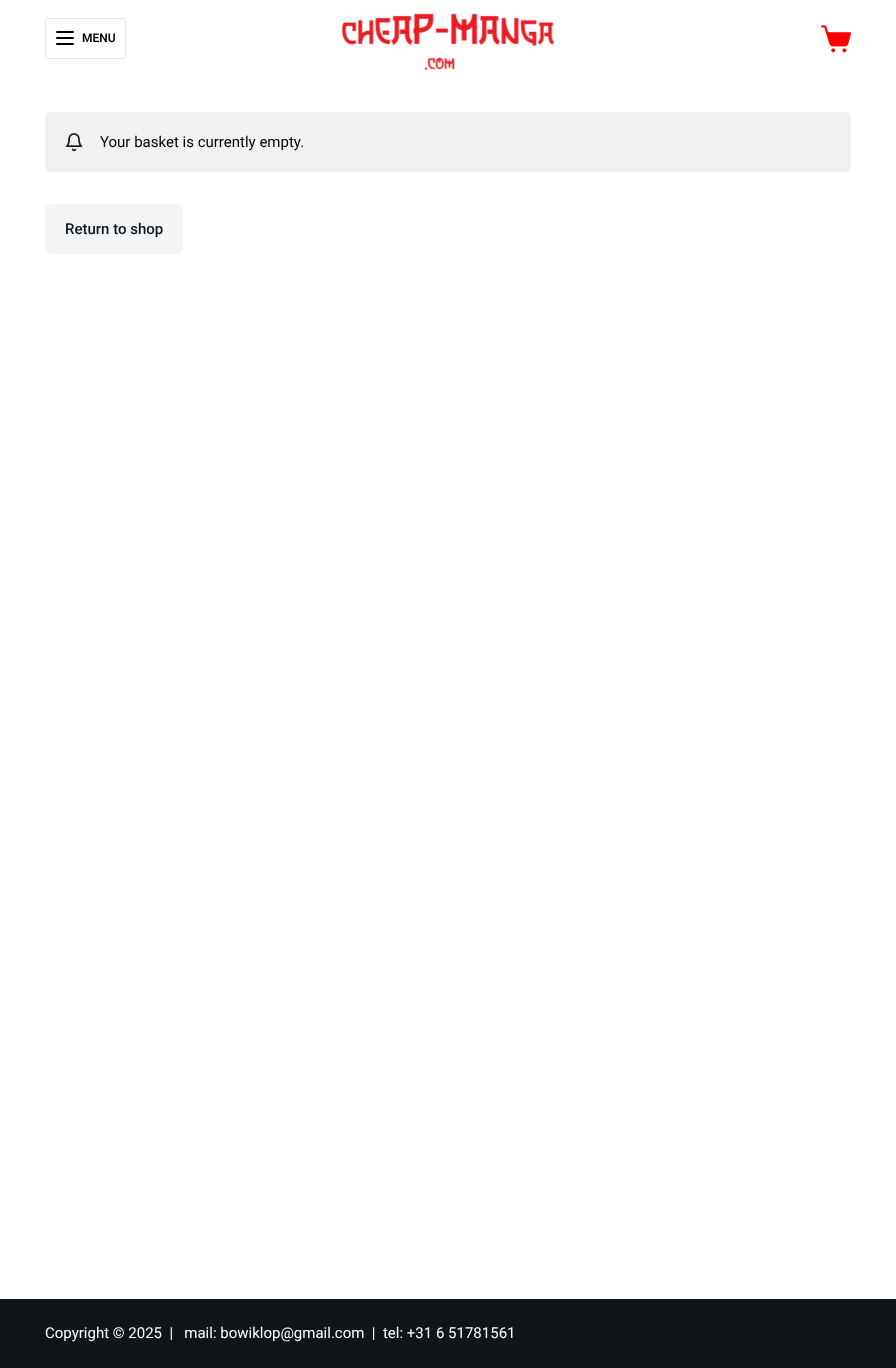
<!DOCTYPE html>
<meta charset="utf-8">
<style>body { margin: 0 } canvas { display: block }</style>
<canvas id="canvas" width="896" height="1368"></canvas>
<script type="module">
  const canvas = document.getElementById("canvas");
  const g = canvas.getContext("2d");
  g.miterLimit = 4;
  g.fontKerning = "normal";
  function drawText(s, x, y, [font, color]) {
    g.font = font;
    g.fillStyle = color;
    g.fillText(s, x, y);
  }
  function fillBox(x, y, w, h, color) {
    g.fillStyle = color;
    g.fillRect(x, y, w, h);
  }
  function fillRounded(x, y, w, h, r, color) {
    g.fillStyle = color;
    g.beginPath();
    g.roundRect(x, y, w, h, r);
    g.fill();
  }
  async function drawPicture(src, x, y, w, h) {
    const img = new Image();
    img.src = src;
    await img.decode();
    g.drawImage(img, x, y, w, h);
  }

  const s1 = ["600 12px Roboto", "#000000"];
  const s2 = ["15px Roboto", "#000000"];
  const s3 = ["500 15px Roboto", "#111518"];
  const s4 = ["15px Roboto", "#FEFEFE"];

  fillBox(0, 0, 896, 1368, "#FFFFFF");
  g.beginPath();
  g.roundRect(45.5, 18.5, 80, 40, 2.5);
  g.strokeStyle = "#E3E8ED";
  g.stroke();
  fillRounded(56, 31, 18, 2, 1, "#000000");
  fillRounded(56, 37, 18, 2, 1, "#000000");
  fillRounded(56, 43, 18, 2, 1, "#000000");
  drawText("MENU", 82, 42, s1);
  await drawPicture("pic1.png", 341, 13, 214, 58);
  await drawPicture("pic2.png", 821, 25, 30, 28);
  fillRounded(45, 112, 806, 60, 5, "#F0F1F3");
  await drawPicture("pic3.png", 65, 133, 18, 19);
  drawText("Your basket is currently empty.", 100, 147, s2);
  fillRounded(45, 204, 138, 50, 6, "#F3F5F7");
  drawText("Return to shop", 65, 234, s3);
  fillBox(0, 1299, 896, 69, "#111518");
  drawText("Copyright © 2025  |   mail: bowiklop@gmail.com  |  tel: +31 6 51781561", 45, 1338, s4);
</script>
